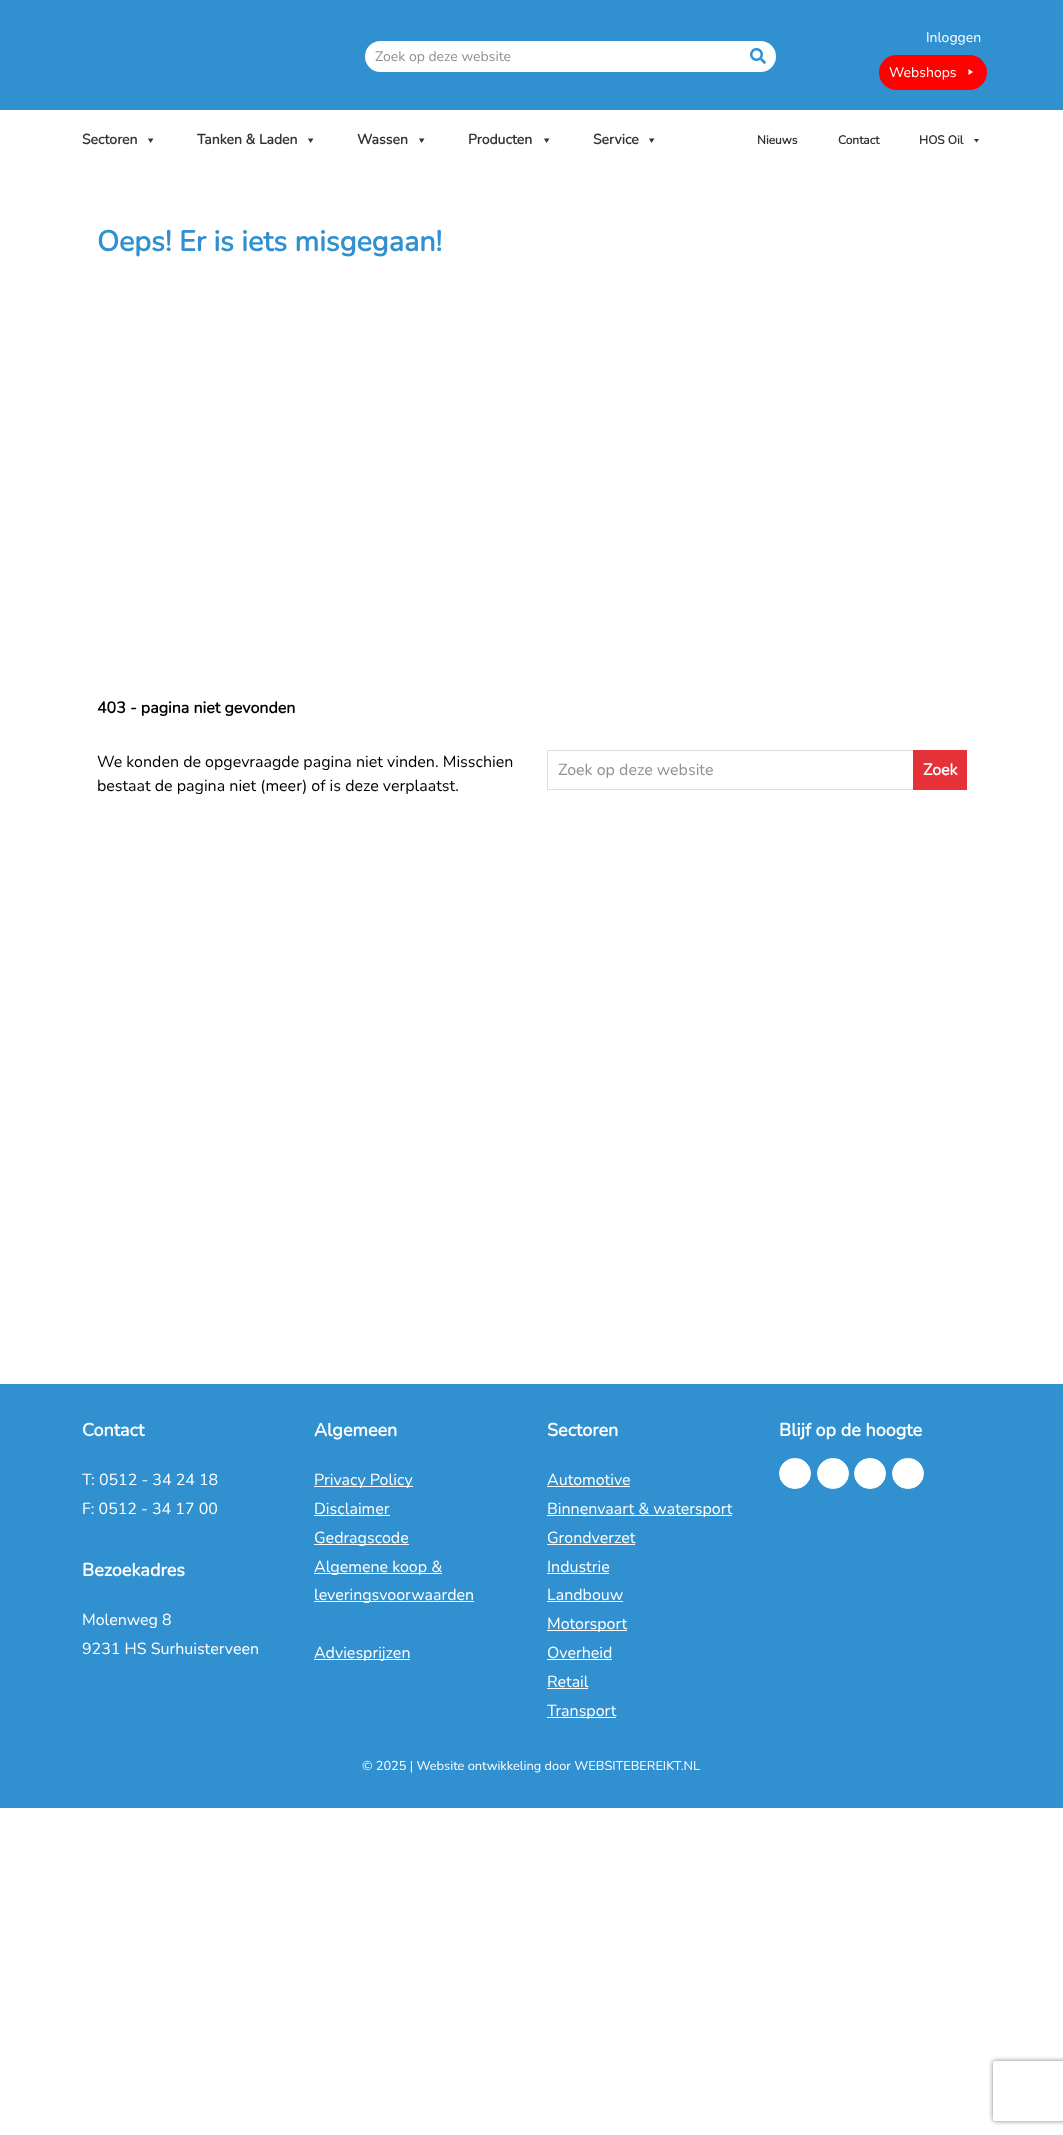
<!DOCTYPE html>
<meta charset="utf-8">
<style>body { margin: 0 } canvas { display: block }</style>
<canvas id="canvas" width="1063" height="2135"></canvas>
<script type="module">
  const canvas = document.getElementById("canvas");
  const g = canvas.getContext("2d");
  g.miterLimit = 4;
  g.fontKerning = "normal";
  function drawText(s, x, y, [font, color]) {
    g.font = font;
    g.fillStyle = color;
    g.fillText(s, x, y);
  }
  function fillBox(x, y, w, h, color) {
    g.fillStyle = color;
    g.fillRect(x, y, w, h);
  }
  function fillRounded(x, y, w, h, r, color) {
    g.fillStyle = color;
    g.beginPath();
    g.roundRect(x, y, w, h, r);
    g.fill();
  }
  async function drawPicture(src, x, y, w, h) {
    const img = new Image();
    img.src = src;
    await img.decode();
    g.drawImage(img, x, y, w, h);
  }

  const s1 = ["200 14px Nunito", "#919191"];
  const s2 = ["200 14px Nunito", "#FFFFFF"];
  const s3 = ["bold 14px Nunito", "#333333"];
  const s4 = ["bold 12px Nunito", "#333333"];
  const s5 = ["bold 28.75px Nunito", "#3190CF"];
  const s6 = ["bold 16px Nunito", "#000000"];
  const s7 = ["200 16px Nunito", "#000000"];
  const s8 = ["200 16px Nunito", "#919191"];
  const s9 = ["bold 16px Nunito", "#FFFFFF"];
  const s10 = ["bold 18px Nunito", "#FFFFFF"];
  const s11 = ["200 16px Nunito", "#FFFFFF"];
  const s12 = ["200 12.8px Nunito", "#FFFFFF"];

  fillBox(0, 0, 1063, 2135, "#FFFFFF");
  fillBox(0, 0, 1063, 110, "#3190CF");
  g.fillStyle = "#FFFFFF";
  g.beginPath();
  g.roundRect(365, 41, 375, 31, [15.5, 0, 0, 15.5]);
  g.fill();
  drawText("Zoek op deze website", 375, 61, s1);
  g.fillStyle = "#FFFFFF";
  g.beginPath();
  g.roundRect(740, 41, 36, 31, [0, 15.5, 15.5, 0]);
  g.fill();
  await drawPicture("pic1.png", 750, 48, 16, 16);
  drawText("Inloggen", 926, 42, s2);
  fillRounded(879, 55, 108, 35, 17.5, "#FF0100");
  drawText("Webshops", 889, 77, s2);
  g.beginPath();
  g.moveTo(968.5, 69);
  g.lineTo(973, 72);
  g.lineTo(968.5, 75);
  g.closePath();
  g.fill();
  drawText("Sectoren", 82, 144, s3);
  g.beginPath();
  g.moveTo(153.5, 138.5);
  g.lineTo(150.5, 143);
  g.lineTo(148, 138.5);
  g.closePath();
  g.fill();
  drawText("Tanken & Laden", 197, 144, s3);
  g.beginPath();
  g.moveTo(313.5, 138.5);
  g.lineTo(310.5, 143);
  g.lineTo(308, 138.5);
  g.closePath();
  g.fill();
  drawText("Wassen", 357, 144, s3);
  g.beginPath();
  g.moveTo(424.5, 138.5);
  g.lineTo(421.5, 143);
  g.lineTo(419, 138.5);
  g.closePath();
  g.fill();
  drawText("Producten", 468, 144, s3);
  g.beginPath();
  g.moveTo(549.5, 138.5);
  g.lineTo(546.5, 143);
  g.lineTo(544, 138.5);
  g.closePath();
  g.fill();
  drawText("Service", 593, 144, s3);
  g.beginPath();
  g.moveTo(654.5, 138.5);
  g.lineTo(651.5, 143);
  g.lineTo(649, 138.5);
  g.closePath();
  g.fill();
  drawText("Nieuws", 757, 144, s4);
  drawText("Contact", 838, 144, s4);
  drawText("HOS Oil", 919, 144, s4);
  g.beginPath();
  g.moveTo(979, 139);
  g.lineTo(976.5, 142.5);
  g.lineTo(974, 139);
  g.closePath();
  g.fill();
  drawText("Oeps! Er is iets misgegaan!", 97, 251, s5);
  drawText("403 - pagina niet gevonden", 97, 713, s6);
  drawText("We konden de opgevraagde pagina niet vinden. Misschien", 97, 767, s7);
  drawText("bestaat de pagina niet (meer) of is deze verplaatst.", 97, 791, s7);
  g.strokeStyle = "#DDDDDD";
  g.strokeRect(547.5, 750.5, 366, 39);
  drawText("Zoek op deze website", 558, 775, s8);
  fillBox(913, 750, 54, 40, "#E53138");
  drawText("Zoek", 923, 775, s9);
  fillBox(0, 1384, 1063, 424, "#3190CF");
  drawText("Contact", 82, 1436, s10);
  drawText("T: 0512 - 34 24 18", 82, 1485, s11);
  drawText("F: 0512 - 34 17 00", 82, 1514, s11);
  drawText("Bezoekadres", 82, 1576, s10);
  drawText("Molenweg 8", 82, 1625, s11);
  drawText("9231 HS Surhuisterveen", 82, 1654, s11);
  drawText("Algemeen", 314, 1436, s10);
  fillBox(314, 1486, 99, 1, "#FFFFFF");
  drawText("Privacy Policy", 314, 1485, s11);
  drawText("Disclaimer", 314, 1514, s11);
  fillBox(314, 1515, 76, 1, "#FFFFFF");
  fillBox(314, 1544, 95, 1, "#FFFFFF");
  drawText("Gedragscode", 314, 1543, s11);
  fillBox(314, 1573, 128, 1, "#FFFFFF");
  drawText("Algemene koop &", 314, 1572, s11);
  fillBox(314, 1601, 160, 1, "#FFFFFF");
  drawText("leveringsvoorwaarden", 314, 1600, s11);
  fillBox(314, 1659, 96, 1, "#FFFFFF");
  drawText("Adviesprijzen", 314, 1658, s11);
  drawText("Sectoren", 547, 1436, s10);
  drawText("Automotive", 547, 1485, s11);
  fillBox(547, 1486, 83, 1, "#FFFFFF");
  fillBox(547, 1515, 185, 1, "#FFFFFF");
  drawText("Binnenvaart & watersport", 547, 1514, s11);
  drawText("Grondverzet", 547, 1543, s11);
  fillBox(547, 1544, 88, 1, "#FFFFFF");
  drawText("Industrie", 547, 1572, s11);
  fillBox(547, 1573, 62, 1, "#FFFFFF");
  drawText("Landbouw", 547, 1600, s11);
  fillBox(547, 1601, 76, 1, "#FFFFFF");
  fillBox(547, 1630, 80, 1, "#FFFFFF");
  drawText("Motorsport", 547, 1629, s11);
  drawText("Overheid", 547, 1658, s11);
  fillBox(547, 1659, 65, 1, "#FFFFFF");
  drawText("Retail", 547, 1687, s11);
  fillBox(547, 1688, 41, 1, "#FFFFFF");
  fillBox(547, 1717, 69, 1, "#FFFFFF");
  drawText("Transport", 547, 1716, s11);
  drawText("Blijf op de hoogte", 779, 1436, s10);
  g.beginPath();
  g.roundRect(779.5, 1458.5, 31, 30, 15);
  g.fill();
  g.strokeStyle = "#FFFFFF";
  g.stroke();
  g.beginPath();
  g.roundRect(817.5, 1458.5, 31, 30, 15);
  g.fill();
  g.stroke();
  g.beginPath();
  g.roundRect(854.5, 1458.5, 31, 30, 15);
  g.fill();
  g.stroke();
  g.beginPath();
  g.roundRect(892.5, 1458.5, 31, 30, 15);
  g.fill();
  g.stroke();
  drawText("© 2025 | Website ontwikkeling door WEBSITEBEREIKT.NL", 362, 1770, s12);
  g.save();
  g.beginPath();
  g.moveTo(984, 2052);
  g.lineTo(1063, 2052);
  g.lineTo(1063, 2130);
  g.lineTo(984, 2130);
  g.closePath();
  g.moveTo(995, 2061);
  g.lineTo(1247, 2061);
  g.bezierCurveTo(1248, 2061, 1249, 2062, 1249, 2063);
  g.lineTo(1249, 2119);
  g.bezierCurveTo(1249, 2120, 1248, 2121, 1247, 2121);
  g.lineTo(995, 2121);
  g.bezierCurveTo(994, 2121, 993, 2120, 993, 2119);
  g.lineTo(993, 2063);
  g.bezierCurveTo(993, 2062, 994, 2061, 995, 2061);
  g.closePath();
  g.clip("evenodd");
  g.fillStyle = "#808080";
  g.filter = "blur(2.5px)";
  g.beginPath();
  g.roundRect(993, 2061, 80, 60, 2);
  g.fill();
  g.filter = "none";
  g.restore();
</script>
